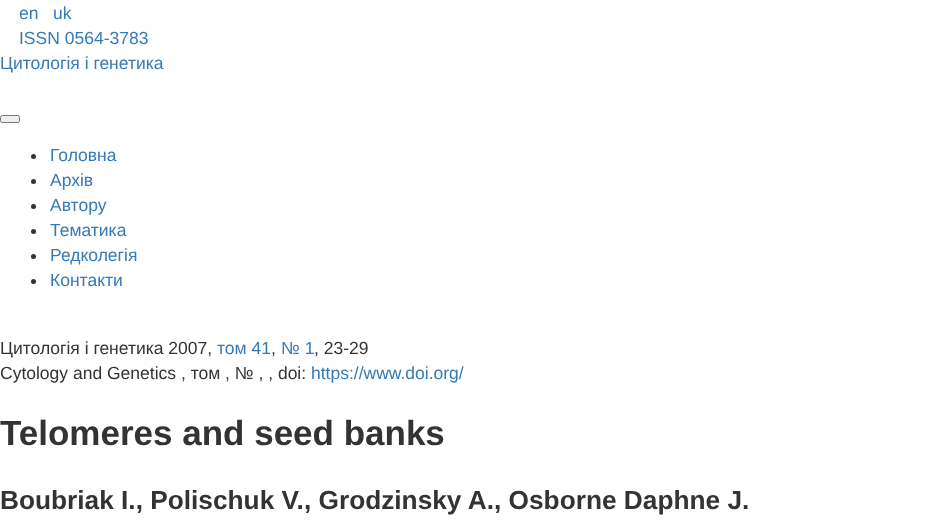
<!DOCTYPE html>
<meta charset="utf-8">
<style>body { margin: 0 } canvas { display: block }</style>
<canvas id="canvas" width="941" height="532"></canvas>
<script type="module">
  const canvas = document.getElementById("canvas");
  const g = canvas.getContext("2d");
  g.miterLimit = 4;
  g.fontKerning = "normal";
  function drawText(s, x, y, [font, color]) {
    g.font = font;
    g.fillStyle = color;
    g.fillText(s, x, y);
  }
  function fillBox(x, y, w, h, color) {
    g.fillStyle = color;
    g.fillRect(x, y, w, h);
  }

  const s1 = ["17.5px Liberation Sans", "#337AB7"];
  const s2 = ["17.5px Liberation Sans", "#333333"];
  const s3 = ["bold 35px Liberation Sans", "#333333"];
  const s4 = ["bold 26.25px Liberation Sans", "#333333"];

  fillBox(0, 0, 941, 532, "#FFFFFF");
  drawText("en", 19, 19, s1);
  drawText("uk", 53, 19, s1);
  drawText("ISSN 0564-3783", 19, 44, s1);
  drawText("Цитологія і генетика", 0, 69, s1);
  g.fillStyle = "#EFEFEF";
  g.beginPath();
  g.roundRect(0.5, 115.5, 19, 7, 2);
  g.fill();
  g.strokeStyle = "#767676";
  g.stroke();
  g.fillStyle = "#333333";
  g.beginPath();
  g.arc(33.5, 156.5, 2.5, 0, Math.PI * 2);
  g.fill();
  drawText("Головна", 50, 161, s1);
  g.fillStyle = "#333333";
  g.beginPath();
  g.arc(33.5, 181.5, 2.5, 0, Math.PI * 2);
  g.fill();
  drawText("Архів", 50, 186, s1);
  g.fillStyle = "#333333";
  g.beginPath();
  g.arc(33.5, 206.5, 2.5, 0, Math.PI * 2);
  g.fill();
  drawText("Автору", 50, 211, s1);
  g.fillStyle = "#333333";
  g.beginPath();
  g.arc(33.5, 231.5, 2.5, 0, Math.PI * 2);
  g.fill();
  drawText("Тематика", 50, 236, s1);
  g.fillStyle = "#333333";
  g.beginPath();
  g.arc(33.5, 256.5, 2.5, 0, Math.PI * 2);
  g.fill();
  drawText("Редколегія", 50, 261, s1);
  g.fillStyle = "#333333";
  g.beginPath();
  g.arc(33.5, 281.5, 2.5, 0, Math.PI * 2);
  g.fill();
  drawText("Контакти", 50, 286, s1);
  drawText("Цитологія і генетика 2007,", 0, 354, s2);
  drawText("том 41", 217, 354, s1);
  drawText(",", 271, 354, s2);
  drawText("№ 1", 281, 354, s1);
  drawText(", 23-29", 314, 354, s2);
  drawText("Cytology and Genetics , том , № , , doi:", 0, 379, s2);
  drawText("https://www.doi.org/", 311, 379, s1);
  drawText("Telomeres and seed banks", 0, 445, s3);
  drawText("Boubriak I., Polischuk V., Grodzinsky A., Osborne Daphne J.", 0, 509, s4);
</script>
